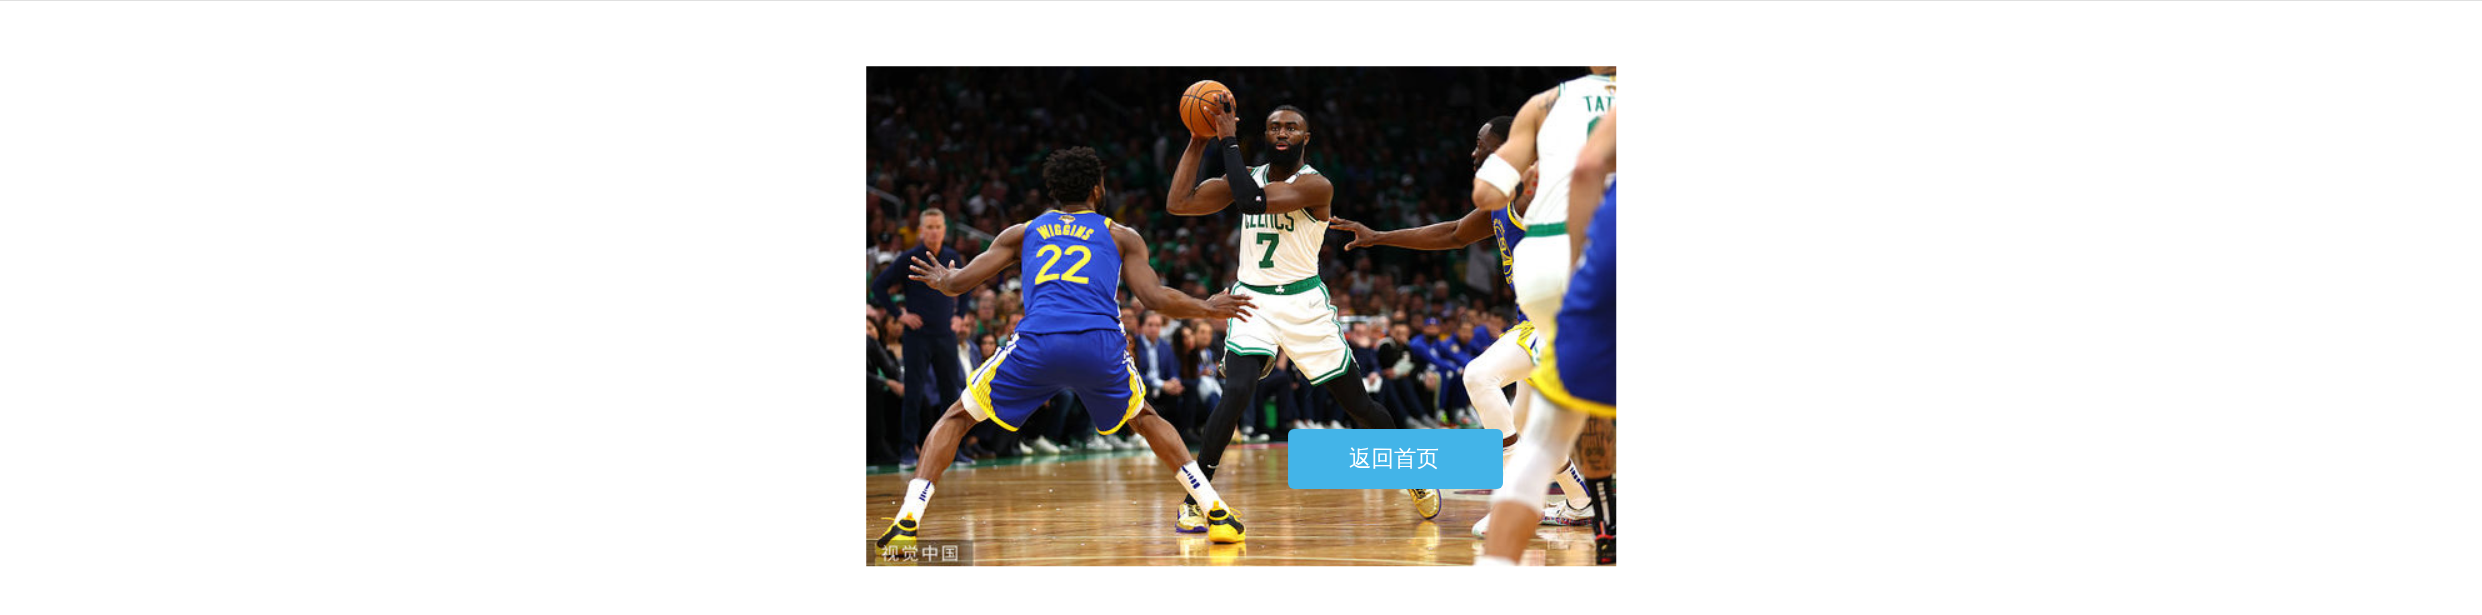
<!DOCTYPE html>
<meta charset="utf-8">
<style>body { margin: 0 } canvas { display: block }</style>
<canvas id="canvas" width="2482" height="615"></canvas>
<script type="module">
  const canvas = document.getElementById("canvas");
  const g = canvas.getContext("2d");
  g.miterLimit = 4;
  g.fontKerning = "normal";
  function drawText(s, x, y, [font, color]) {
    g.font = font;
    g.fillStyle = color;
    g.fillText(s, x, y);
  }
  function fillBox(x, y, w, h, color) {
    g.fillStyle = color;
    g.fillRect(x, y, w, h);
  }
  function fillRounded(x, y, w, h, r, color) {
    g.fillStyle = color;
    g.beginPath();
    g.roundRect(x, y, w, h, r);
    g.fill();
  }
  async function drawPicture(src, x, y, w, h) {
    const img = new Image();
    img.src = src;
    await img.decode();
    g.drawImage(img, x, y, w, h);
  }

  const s1 = ["500 22.5px WenQuanYi Zen Hei", "#FFFFFF"];

  fillBox(0, 0, 2482, 615, "#FFFFFF");
  fillBox(0, 0, 2482, 1, "#E0E0E0");
  await drawPicture("pic1.png", 866, 66, 751, 501);
  fillRounded(1288, 429, 215, 60, 6, "#43B4E8");
  drawText("返回首页", 1349, 466, s1);
</script>
